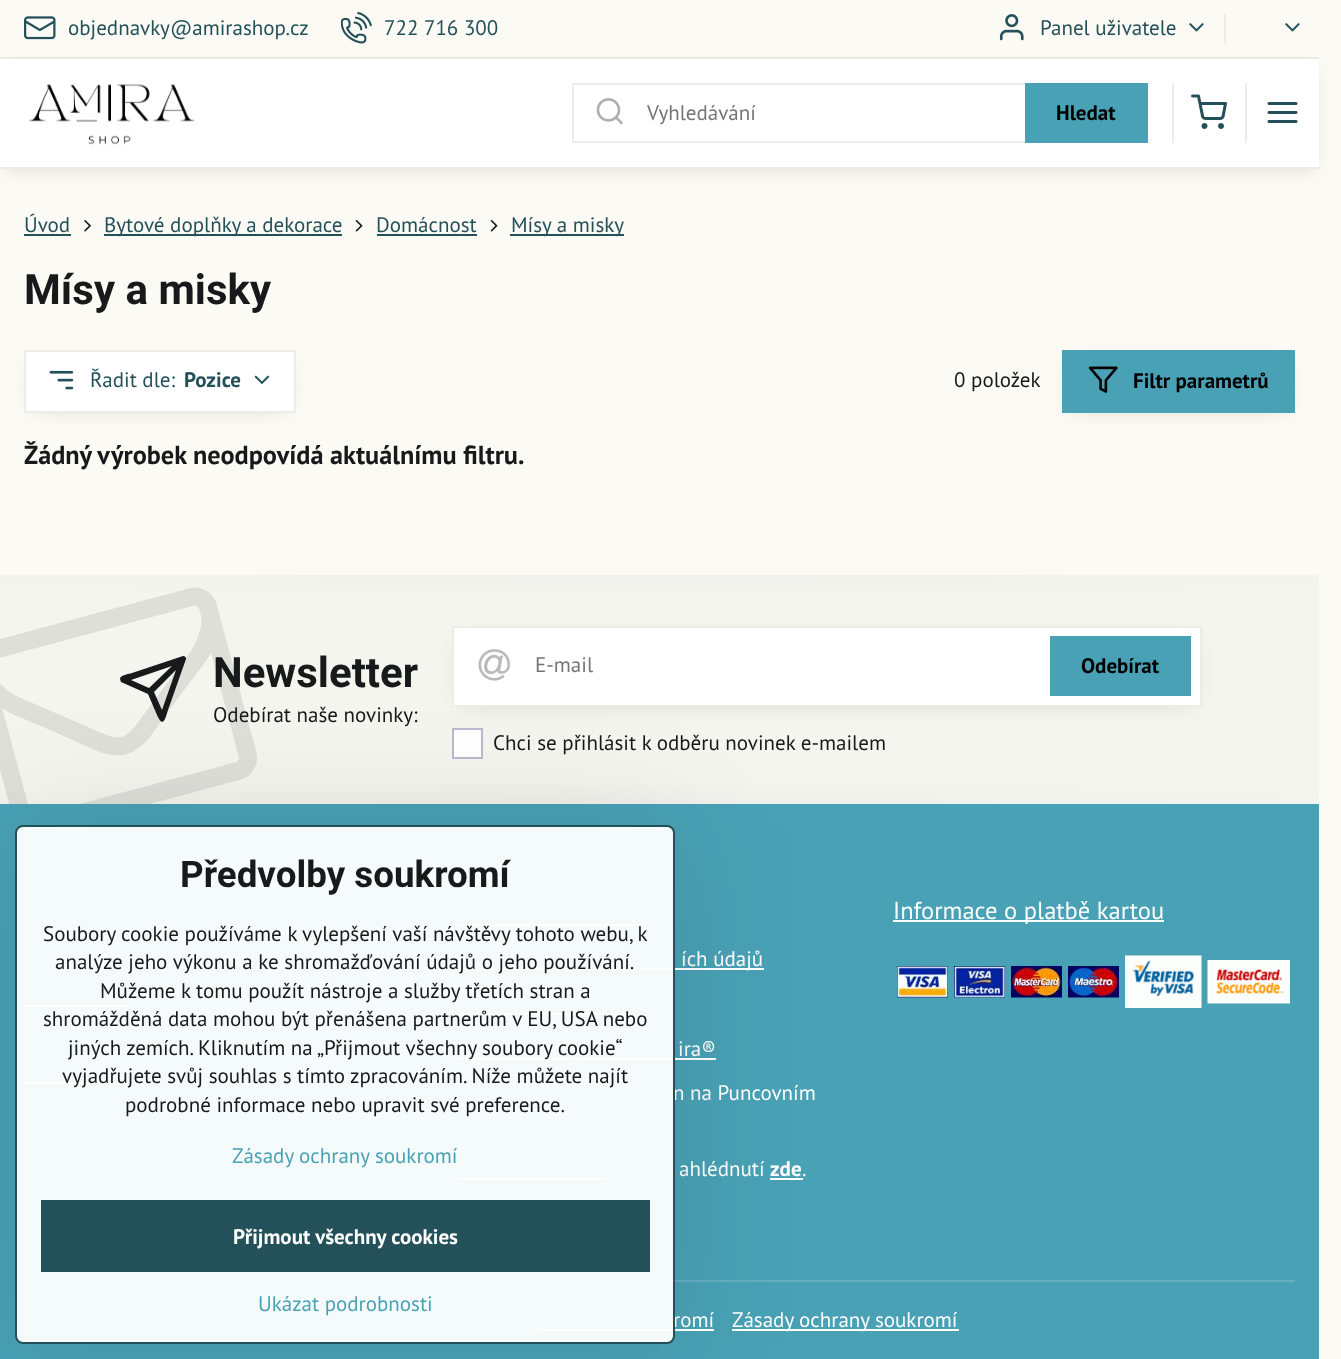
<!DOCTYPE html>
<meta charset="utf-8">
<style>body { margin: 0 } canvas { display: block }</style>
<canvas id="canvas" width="1341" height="1359"></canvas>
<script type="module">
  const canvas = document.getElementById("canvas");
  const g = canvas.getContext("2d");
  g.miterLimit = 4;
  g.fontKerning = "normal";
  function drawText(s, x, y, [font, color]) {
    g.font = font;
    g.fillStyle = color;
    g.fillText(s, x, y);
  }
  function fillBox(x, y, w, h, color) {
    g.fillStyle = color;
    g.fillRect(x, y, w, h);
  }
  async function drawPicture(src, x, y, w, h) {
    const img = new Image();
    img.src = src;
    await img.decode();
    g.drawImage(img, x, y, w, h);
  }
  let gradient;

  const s1 = ["21px PT Sans", "#24505A"];
  const s2 = ["21px PT Sans", "#757575"];
  const s3 = ["bold 21px PT Sans", "#000000"];
  const s4 = ["bold 42px Roboto", "#17191A"];
  const s5 = ["bold 21px PT Sans", "#24505A"];
  const s6 = ["21px PT Sans", "#17191A"];
  const s7 = ["bold 26.25px PT Sans", "#17191A"];
  const s8 = ["24.5px PT Sans", "#FFFFFF"];
  const s9 = ["21px PT Sans", "#FFFFFF"];
  const s10 = ["bold 21px PT Sans", "#FFFFFF"];
  const s11 = ["bold 36.75px Roboto", "#17191A"];
  const s12 = ["21px PT Sans", "#49A1B5"];

  fillBox(0, 0, 1341, 1359, "#FBFAF4");
  fillBox(0, 599, 1319, 181, "#F5F5EF");
  fillBox(0, 57, 1319, 2, "#EDECE7");
  await drawPicture("pic1.png", 24, 16, 32, 24);
  drawText("objednavky@amirashop.cz", 68, 35, s1);
  await drawPicture("pic2.png", 341, 12, 31, 32);
  drawText("722 716 300", 384, 35, s1);
  fillBox(1224, 14, 2, 30, "#EDECE7");
  await drawPicture("pic3.png", 999, 14, 25, 27);
  drawText("Panel uživatele", 1040, 35, s1);
  await drawPicture("pic4.png", 1189, 23, 15, 9);
  await drawPicture("pic4.png", 1285, 23, 15, 9);
  g.fillStyle = "rgba(0, 0, 20, 0.15)";
  g.filter = "blur(9px)";
  g.beginPath();
  g.rect(6, 71, 1307, 97);
  g.fill();
  g.filter = "none";
  fillBox(0, 59, 1319, 108, "#FFFFFF");
  fillBox(0, 167, 1319, 2, "#EDECE7");
  await drawPicture("pic5.png", 29, 84, 166, 61);
  g.strokeStyle = "#EDECE7";
  g.lineWidth = 2;
  g.strokeRect(573, 84, 574, 58);
  await drawPicture("pic6.png", 596, 98, 27, 27);
  drawText("Vyhledávání", 647, 120, s2);
  fillBox(1025, 83, 123, 60, "#49A1B5");
  drawText("Hledat", 1056, 120, s3);
  fillBox(1172, 83, 2, 60, "#EDECE7");
  await drawPicture("pic7.png", 1191, 94, 36, 35);
  fillBox(1245, 83, 2, 60, "#EDECE7");
  await drawPicture("pic8.png", 1267, 102, 31, 21);
  drawText("Úvod", 24, 232, s1);
  fillBox(24, 234, 47, 2, "#24505A");
  await drawPicture("pic9.png", 84, 220, 7, 12);
  fillBox(104, 234, 238, 2, "#24505A");
  drawText("Bytové doplňky a dekorace", 104, 232, s1);
  await drawPicture("pic10.png", 355, 220, 8, 12);
  drawText("Domácnost", 376, 232, s1);
  fillBox(377, 234, 100, 2, "#24505A");
  await drawPicture("pic10.png", 490, 220, 8, 12);
  fillBox(510, 234, 114, 2, "#24505A");
  drawText("Mísy a misky", 511, 232, s1);
  drawText("Mísy a misky", 24, 304, s4);
  g.fillStyle = "rgba(0, 0, 20, 0.15)";
  g.filter = "blur(10.5px)";
  g.beginPath();
  g.rect(35, 366, 250, 42);
  g.fill();
  g.filter = "none";
  g.fillStyle = "#FFFFFF";
  g.beginPath();
  g.rect(25, 351, 270, 61);
  g.fill();
  g.stroke();
  await drawPicture("pic11.png", 49, 370, 25, 20);
  drawText("Řadit dle:", 90, 387, s1);
  drawText("Pozice", 184, 387, s5);
  await drawPicture("pic12.png", 254, 375, 16, 9);
  drawText("0 položek", 954, 387, s6);
  g.fillStyle = "rgba(0, 0, 20, 0.15)";
  g.filter = "blur(10.5px)";
  g.beginPath();
  g.rect(1073, 366, 211, 42);
  g.fill();
  g.filter = "none";
  fillBox(1062, 350, 233, 63, "#49A1B5");
  await drawPicture("pic13.png", 1088, 366, 30, 27);
  drawText("Filtr parametrů", 1133, 388, s3);
  drawText("Žádný výrobek neodpovídá aktuálnímu filtru.", 24, 464, s7);
  gradient = g.createRadialGradient(659, 26461.06, 0, 659, 26461.06, 1119);
  gradient.addColorStop(0, "#EFF0EB");
  gradient.addColorStop(0.7, "#F5F5EF");
  g.fillStyle = gradient;
  g.beginPath();
  g.rect(0, 780, 1319, 24);
  g.save();
  g.clip();
  g.scale(1, 34 / 1119);
  g.fillRect(0, 0, 1341, 44728);
  g.restore();
  gradient = g.createRadialGradient(659, 18924.26, 0, 659, 18924.26, 1119);
  gradient.addColorStop(0, "#EFF0EB");
  gradient.addColorStop(0.7, "#F5F5EF");
  g.fillStyle = gradient;
  g.beginPath();
  g.rect(0, 575, 1319, 24);
  g.save();
  g.clip();
  g.scale(1, 34 / 1119);
  g.fillRect(0, 0, 1341, 44728);
  g.restore();
  await drawPicture("pic14.png", 0, 587, 257, 217);
  g.fillStyle = "#17191A";
  g.beginPath();
  g.moveTo(186, 659);
  g.bezierCurveTo(186, 657, 185, 656, 183, 656);
  g.lineTo(132, 673);
  g.bezierCurveTo(129, 674, 120, 675, 120, 679);
  g.lineTo(121, 682);
  g.lineTo(148, 694);
  g.lineTo(157, 715);
  g.bezierCurveTo(163, 728, 165, 720, 168, 710);
  g.closePath();
  g.moveTo(149, 688);
  g.lineTo(131, 680);
  g.lineTo(172, 666);
  g.closePath();
  g.moveTo(176, 670);
  g.lineTo(162, 710);
  g.lineTo(154, 692);
  g.closePath();
  g.fill();
  drawText("Newsletter", 213, 687, s4);
  drawText("Odebírat naše novinky:", 213, 722, s6);
  g.fillStyle = "rgba(0, 0, 20, 0.15)";
  g.filter = "blur(10.5px)";
  g.beginPath();
  g.rect(462, 642, 729, 60);
  g.fill();
  g.filter = "none";
  g.fillStyle = "#FFFFFF";
  g.beginPath();
  g.rect(453, 627, 748, 79);
  g.fill();
  g.stroke();
  await drawPicture("pic15.png", 478, 649, 32, 32);
  drawText("E-mail", 535, 672, s2);
  fillBox(1050, 636, 141, 60, "#49A1B5");
  drawText("Odebírat", 1081, 673, s3);
  g.fillStyle = "#FFFFFF";
  g.beginPath();
  g.rect(453, 729, 29, 29);
  g.fill();
  g.strokeStyle = "#B8BBCE";
  g.stroke();
  drawText("Chci se přihlásit k odběru novinek e-mailem", 493, 750, s6);
  fillBox(0, 804, 1319, 555, "#49A1B5");
  fillBox(893, 920, 271, 2, "#FFFFFF");
  drawText("Informace o platbě kartou", 893, 919, s8);
  await drawPicture("pic16.png", 897, 966, 51, 32);
  await drawPicture("pic17.png", 954, 966, 51, 32);
  await drawPicture("pic18.png", 1011, 966, 51, 32);
  await drawPicture("pic19.png", 1068, 966, 51, 32);
  await drawPicture("pic20.png", 1125, 955, 77, 53);
  await drawPicture("pic21.png", 1207, 960, 83, 44);
  fillBox(24, 1005, 108, 2, "#FFFFFF");
  fillBox(24, 1082, 104, 2, "#FFFFFF");
  fillBox(459, 924, 179, 2, "#FFFFFF");
  fillBox(459, 968, 305, 2, "#FFFFFF");
  drawText("ích údajů", 681, 966, s9);
  fillBox(459, 1013, 174, 2, "#FFFFFF");
  drawText("ira®", 678, 1056, s9);
  fillBox(578, 1058, 138, 2, "#FFFFFF");
  fillBox(459, 1058, 114, 2, "#FFFFFF");
  drawText("n na Puncovním", 673, 1100, s9);
  drawText("ahlédnutí", 679, 1176, s9);
  drawText("zde", 770, 1176, s10);
  fillBox(770, 1178, 33, 2, "#FFFFFF");
  drawText(".", 802, 1176, s9);
  fillBox(459, 1178, 146, 2, "#FFFFFF");
  fillBox(24, 1280, 1271, 2, "#64AFC0");
  drawText("romí", 673, 1327, s9);
  fillBox(539, 1329, 175, 2, "#FFFFFF");
  fillBox(732, 1329, 227, 2, "#FFFFFF");
  drawText("Zásady ochrany soukromí", 732, 1327, s9);
  g.save();
  g.beginPath();
  g.moveTo(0, 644);
  g.lineTo(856, 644);
  g.lineTo(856, 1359);
  g.lineTo(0, 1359);
  g.closePath();
  g.moveTo(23, 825);
  g.lineTo(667, 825);
  g.bezierCurveTo(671.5, 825, 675, 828.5, 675, 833);
  g.lineTo(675, 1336);
  g.bezierCurveTo(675, 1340.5, 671.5, 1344, 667, 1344);
  g.lineTo(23, 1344);
  g.bezierCurveTo(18.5, 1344, 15, 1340.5, 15, 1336);
  g.lineTo(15, 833);
  g.bezierCurveTo(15, 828.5, 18.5, 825, 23, 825);
  g.closePath();
  g.clip("evenodd");
  g.fillStyle = "rgba(0, 0, 0, 0.1)";
  g.filter = "blur(60px)";
  g.beginPath();
  g.roundRect(15, 825, 660, 519, 8);
  g.fill();
  g.filter = "none";
  g.restore();
  g.fillStyle = "rgba(255, 255, 255, 0.95)";
  g.beginPath();
  g.roundRect(16, 826, 658, 517, 7);
  g.fill();
  g.strokeStyle = "#24505A";
  g.stroke();
  drawText("Předvolby soukromí", 180, 887, s11);
  drawText("Soubory cookie používáme k vylepšení vaší návštěvy tohoto webu, k", 43, 941, s6);
  drawText("analýze jeho výkonu a ke shromažďování údajů o jeho používání.", 55, 969, s6);
  drawText("Můžeme k tomu použít nástroje a služby třetích stran a", 100, 998, s6);
  drawText("shromážděná data mohou být přenášena partnerům v EU, USA nebo", 43, 1026, s6);
  drawText("jiných zemích. Kliknutím na „Přijmout všechny soubory cookie“", 68, 1055, s6);
  drawText("vyjadřujete svůj souhlas s tímto zpracováním. Níže můžete najít", 62, 1083, s6);
  drawText("podrobné informace nebo upravit své preference.", 125, 1112, s6);
  drawText("Zásady ochrany soukromí", 232, 1163, s12);
  fillBox(41, 1200, 609, 72, "#24505A");
  drawText("Přijmout všechny cookies", 233, 1244, s10);
  drawText("Ukázat podrobnosti", 258, 1311, s12);
</script>
